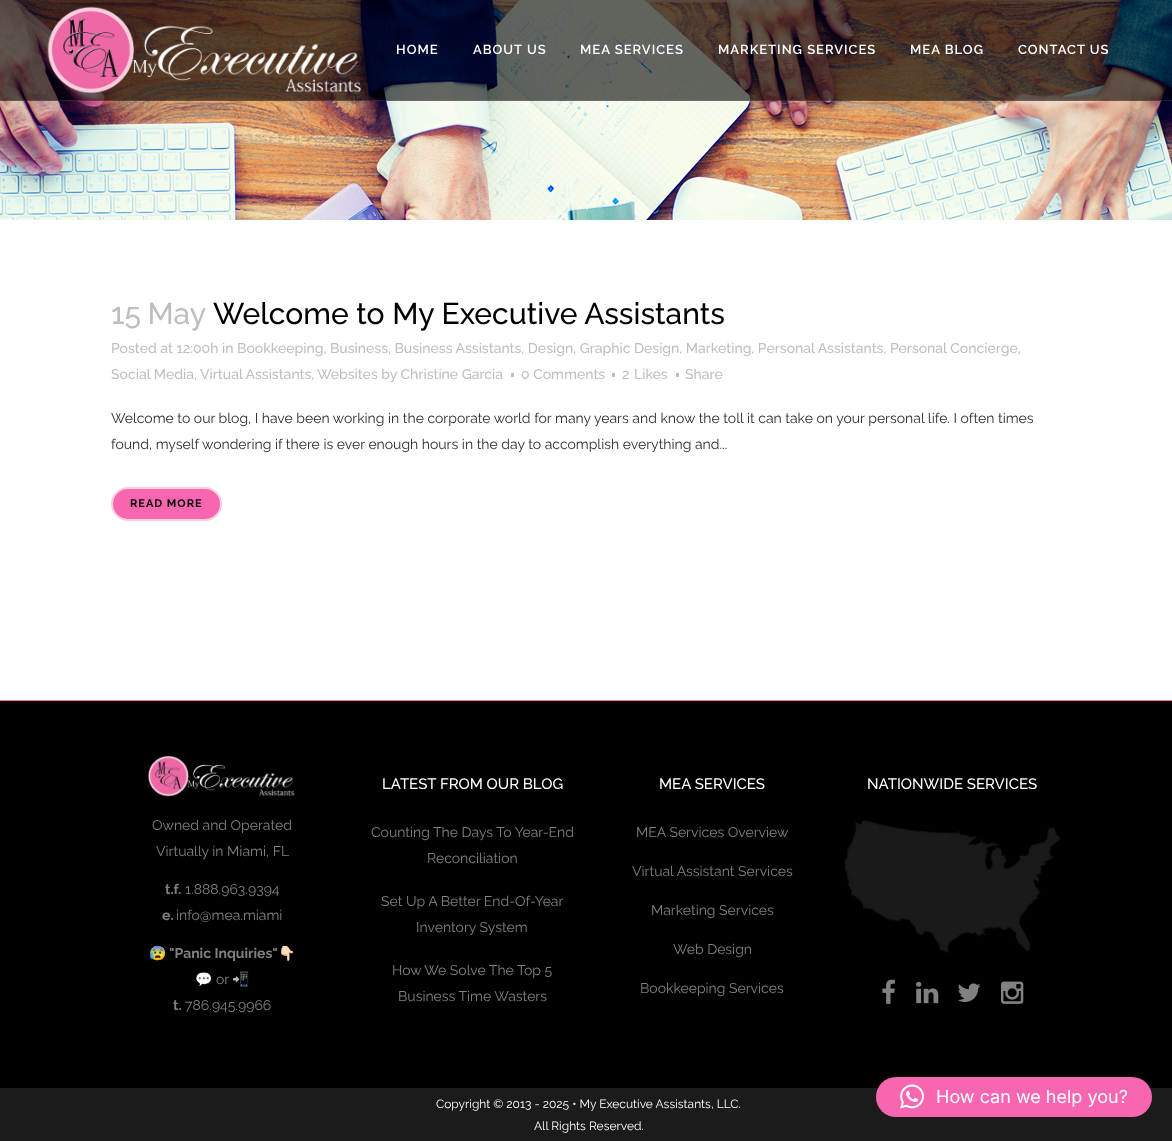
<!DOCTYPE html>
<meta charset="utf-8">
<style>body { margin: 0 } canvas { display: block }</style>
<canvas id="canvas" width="1172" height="1141"></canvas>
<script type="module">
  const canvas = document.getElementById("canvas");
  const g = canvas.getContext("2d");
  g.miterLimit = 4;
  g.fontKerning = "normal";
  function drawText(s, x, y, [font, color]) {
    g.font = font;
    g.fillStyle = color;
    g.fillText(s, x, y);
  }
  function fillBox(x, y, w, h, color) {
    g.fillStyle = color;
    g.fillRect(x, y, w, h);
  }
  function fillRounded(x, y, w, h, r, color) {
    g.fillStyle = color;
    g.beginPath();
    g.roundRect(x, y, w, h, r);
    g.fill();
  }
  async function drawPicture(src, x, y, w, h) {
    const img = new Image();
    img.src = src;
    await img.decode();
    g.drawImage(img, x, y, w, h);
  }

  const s1 = ["600 13px Raleway", "#FFFFFF"];
  const s2 = ["500 30px Raleway", "#BEBEBE"];
  const s3 = ["500 30px Raleway", "#000000"];
  const s4 = ["500 14px Raleway", "#BEBEBE"];
  const s5 = ["14px Raleway", "#2D2D2D"];
  const s6 = ["bold 11px Raleway", "#000000"];
  const s7 = ["500 15px Raleway", "#FFFFFF"];
  const s8 = ["14px Raleway", "#818181"];
  const s9 = ["bold 14px Raleway", "#818181"];
  const s10 = ["bold 14px Noto Color Emoji", "#818181"];
  const s11 = ["14px Noto Color Emoji", "#818181"];
  const s12 = ["12px Raleway", "#FFFFFF"];
  const s13 = ["18px Inter", "#FFFFFF"];

  fillBox(0, 0, 1172, 1141, "#FFFFFF");
  await drawPicture("pic2.png", 0, 0, 1172, 220);
  fillBox(0, 0, 1172, 101, "rgba(0, 0, 0, 0.6)");
  fillBox(0, 100, 1172, 1, "rgba(148, 148, 148, 0.2)");
  await drawPicture("pic1.png", 47, 6, 314, 88);
  g.letterSpacing = "1px";
  drawText("HOME", 396, 54, s1);
  drawText("ABOUT US", 473, 54, s1);
  drawText("MEA SERVICES", 580, 54, s1);
  drawText("MARKETING SERVICES", 718, 54, s1);
  drawText("MEA BLOG", 910, 54, s1);
  drawText("CONTACT US", 1018, 54, s1);
  g.letterSpacing = "0px";
  g.wordSpacing = "-1px";
  drawText("15 May", 111, 324, s2);
  g.wordSpacing = "0px";
  drawText("Welcome to My Executive Assistants", 213, 324, s3);
  drawText("Posted at 12:00h in Bookkeeping, Business, Business Assistants, Design, Graphic Design, Marketing, Personal Assistants, Personal Concierge,", 111, 353, s4);
  drawText("Social Media,", 111, 379, s4);
  drawText("Virtual Assistants,", 200, 379, s4);
  drawText("Websites by Christine Garcia", 317, 379, s4);
  fillBox(511, 373, 3, 4, "#BEBEBE");
  drawText("0 Comments", 521, 379, s4);
  fillBox(612, 373, 3, 4, "#BEBEBE");
  drawText("2", 622, 379, s4);
  drawText("Likes", 634, 379, s4);
  fillBox(676, 373, 3, 4, "#BEBEBE");
  drawText("Share", 685, 379, s4);
  drawText("Welcome to our blog, I have been working in the corporate world for many years and know the toll it can take on your personal life. I often times", 111, 423, s5);
  drawText("found, myself wondering if there is ever enough hours in the day to accomplish everything and...", 111, 449, s5);
  g.fillStyle = "#F866B2";
  g.beginPath();
  g.roundRect(112, 488, 109, 32, 16);
  g.fill();
  g.strokeStyle = "#FACFDD";
  g.lineWidth = 2;
  g.stroke();
  g.letterSpacing = "1px";
  drawText("READ MORE", 130, 507, s6);
  fillBox(0, 701, 1172, 387, "#000000");
  fillBox(0, 700, 1172, 1, "#F866B2");
  g.letterSpacing = "0px";
  drawText("LATEST FROM OUR BLOG", 382, 789, s7);
  drawText("Counting The Days To Year-End", 371, 837, s8);
  drawText("Reconciliation", 427, 863, s8);
  drawText("Set Up A Better End-Of-Year", 381, 906, s8);
  drawText("Inventory System", 416, 932, s8);
  drawText("How We Solve The Top 5", 392, 975, s8);
  drawText("Business Time Wasters", 398, 1001, s8);
  drawText("MEA SERVICES", 659, 789, s7);
  drawText("MEA Services Overview", 636, 837, s8);
  drawText("Virtual Assistant Services", 632, 876, s8);
  drawText("Marketing Services", 651, 915, s8);
  drawText("Web Design", 673, 954, s8);
  drawText("Bookkeeping Services", 640, 993, s8);
  drawText("NATIONWIDE SERVICES", 867, 789, s7);
  await drawPicture("pic3.png", 844, 820, 217, 133);
  await drawPicture("pic4.png", 882, 979, 13, 25);
  await drawPicture("pic5.png", 916, 981, 23, 23);
  await drawPicture("pic6.png", 958, 983, 23, 19);
  await drawPicture("pic7.png", 1001, 981, 23, 23);
  await drawPicture("pic8.png", 148, 755, 147, 42);
  drawText("Owned and Operated", 152, 830, s8);
  drawText("Virtually in Miami, FL", 156, 856, s8);
  drawText("t.f.", 165, 894, s9);
  drawText("1.888.963.9394", 185, 894, s8);
  drawText("e.", 162, 920, s9);
  drawText("info@mea.miami", 176, 920, s8);
  drawText("😰", 149, 958, s10);
  drawText("\"Panic Inquiries\"", 169, 958, s9);
  drawText("👇🏻", 278, 958, s10);
  drawText("💬", 195, 984, s11);
  drawText("or", 216, 984, s8);
  drawText("📲", 232, 984, s11);
  drawText("t.", 173, 1010, s9);
  drawText("786.945.9966", 185, 1010, s8);
  fillBox(0, 1088, 1172, 53, "#1B1B1B");
  drawText("Copyright © 2013 - 2025 • My Executive Assistants, LLC.", 436, 1108, s12);
  drawText("All Rights Reserved.", 534, 1130, s12);
  fillRounded(876, 1077, 276, 40, 20, "#F866B2");
  await drawPicture("pic9.png", 900, 1084, 24, 25);
  drawText("How can we help you?", 936, 1103, s13);
</script>
